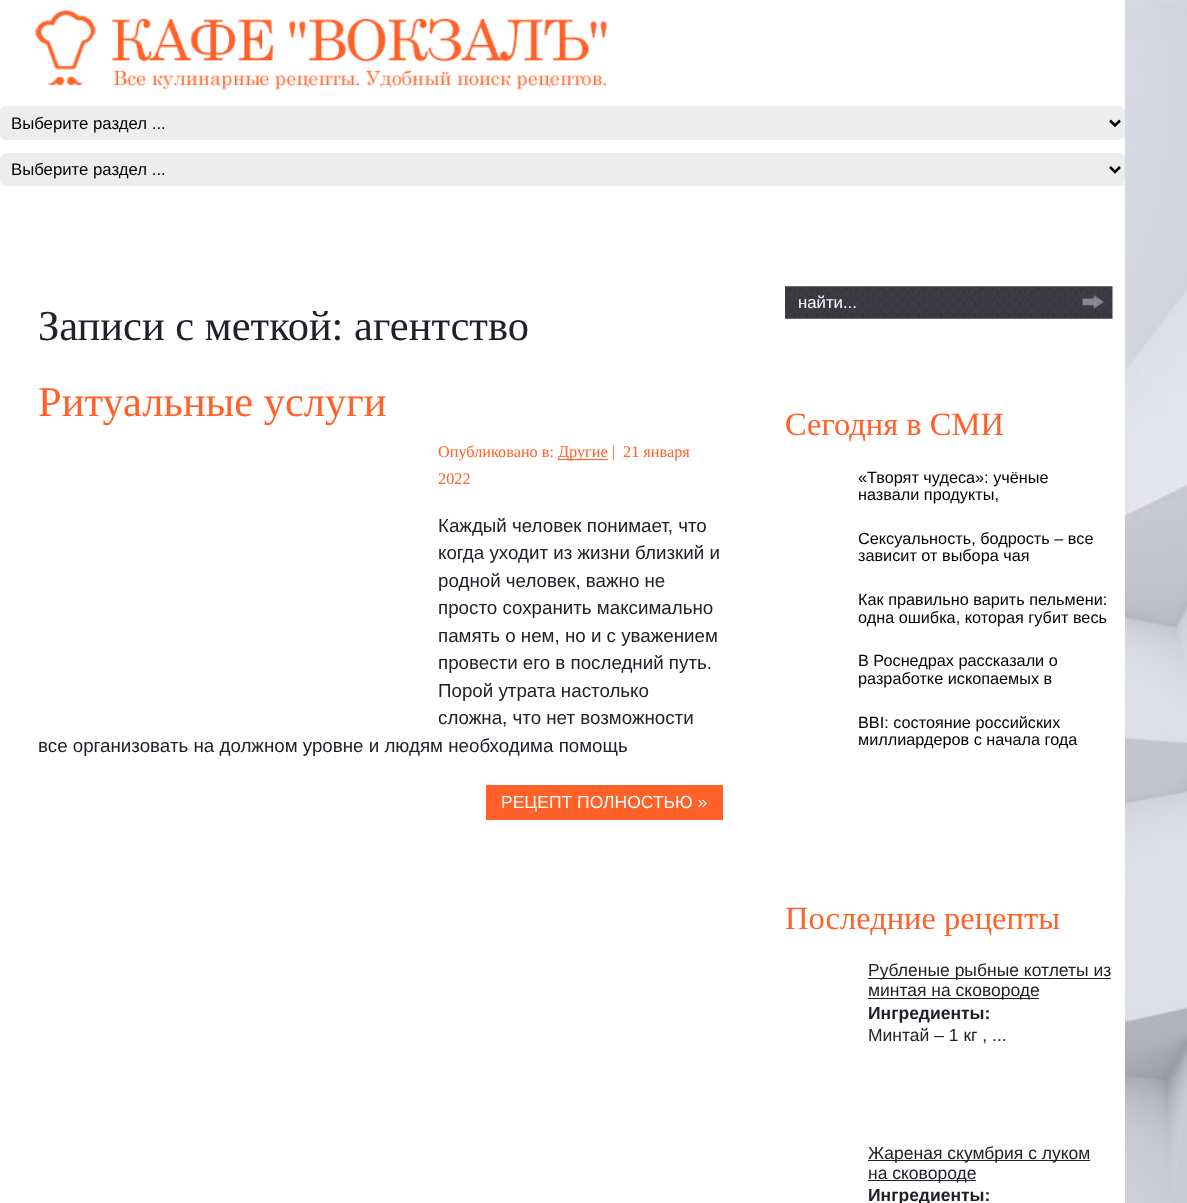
<!DOCTYPE html>
<meta charset="utf-8">
<style>body { margin: 0 } canvas { display: block }</style>
<canvas id="canvas" width="1187" height="1203"></canvas>
<script type="module">
  const canvas = document.getElementById("canvas");
  const g = canvas.getContext("2d");
  g.miterLimit = 4;
  g.fontKerning = "normal";
  function drawText(s, x, y, [font, color]) {
    g.font = font;
    g.fillStyle = color;
    g.fillText(s, x, y);
  }
  function fillBox(x, y, w, h, color) {
    g.fillStyle = color;
    g.fillRect(x, y, w, h);
  }
  function fillRounded(x, y, w, h, r, color) {
    g.fillStyle = color;
    g.beginPath();
    g.roundRect(x, y, w, h, r);
    g.fill();
  }
  async function drawPicture(src, x, y, w, h) {
    const img = new Image();
    img.src = src;
    await img.decode();
    g.drawImage(img, x, y, w, h);
  }

  const s1 = ["16.75px Liberation Sans", "#000000"];
  const s2 = ["42.5px Liberation Serif", "#212028"];
  const s3 = ["42.5px Liberation Serif", "#FF6128"];
  const s4 = ["16.25px Liberation Serif", "#FF6128"];
  const s5 = ["18.75px Liberation Sans", "#212028"];
  const s6 = ["17.5px Liberation Sans", "#FFFFFF"];
  const s7 = ["16.75px Liberation Sans", "#FFFFFF"];
  const s8 = ["32.5px Liberation Serif", "#FF6128"];
  const s9 = ["16.25px Liberation Sans", "#000000"];
  const s10 = ["17.5px Liberation Sans", "#212028"];
  const s11 = ["bold 17.5px Liberation Sans", "#212028"];

  fillBox(0, 0, 1187, 1203, "#FFFFFF");
  await drawPicture("pic1.png", 1125, 0, 62, 1203);
  await drawPicture("pic2.png", 35, 10, 573, 80);
  fillRounded(0, 106, 1125, 34, 6, "#EDEDED");
  g.beginPath();
  g.moveTo(1110, 120.5);
  g.lineTo(1115, 125.5);
  g.lineTo(1120, 120.5);
  g.strokeStyle = "#000000";
  g.lineWidth = 2.5;
  g.stroke();
  drawText("Выберите раздел ...", 11, 129, s1);
  fillRounded(0, 153, 1125, 33, 6, "#EDEDED");
  g.beginPath();
  g.moveTo(1110, 167);
  g.lineTo(1115, 172);
  g.lineTo(1120, 167);
  g.stroke();
  drawText("Выберите раздел ...", 11, 175, s1);
  drawText("Записи с меткой: агентство", 38, 340, s2);
  drawText("Ритуальные услуги", 38, 416, s3);
  drawText("Опубликовано в:", 438, 457, s4);
  fillBox(558, 459, 50, 1, "#FF6128");
  drawText("Другие |", 558, 457, s4);
  drawText("21 января", 623, 457, s4);
  drawText("2022", 438, 484, s4);
  drawText("Каждый человек понимает, что", 438, 532, s5);
  drawText("когда уходит из жизни близкий и", 438, 559, s5);
  drawText("родной человек, важно не", 438, 587, s5);
  drawText("просто сохранить максимально", 438, 614, s5);
  drawText("память о нем, но и с уважением", 438, 642, s5);
  drawText("провести его в последний путь.", 438, 669, s5);
  drawText("Порой утрата настолько", 438, 697, s5);
  drawText("сложна, что нет возможности", 438, 724, s5);
  drawText("все организовать на должном уровне и людям необходима помощь", 38, 752, s5);
  fillBox(486, 785, 237, 35, "#FF6128");
  drawText("РЕЦЕПТ ПОЛНОСТЬЮ »", 501, 808, s6);
  await drawPicture("pic3.png", 785, 286, 328, 33);
  drawText("найти...", 798, 308, s7);
  await drawPicture("pic4.png", 1082, 295, 22, 14);
  drawText("Сегодня в СМИ", 785, 435, s8);
  drawText("«Творят чудеса»: учёные", 858, 483, s9);
  drawText("назвали продукты,", 858, 500, s9);
  drawText("Сексуальность, бодрость – все", 858, 544, s9);
  drawText("зависит от выбора чая", 858, 561, s9);
  drawText("Как правильно варить пельмени:", 858, 605, s9);
  drawText("одна ошибка, которая губит весь", 858, 623, s9);
  drawText("В Роснедрах рассказали о", 858, 666, s9);
  drawText("разработке ископаемых в", 858, 684, s9);
  drawText("BBI: состояние российских", 858, 728, s9);
  drawText("миллиардеров с начала года", 858, 745, s9);
  drawText("Последние рецепты", 785, 929, s8);
  fillBox(868, 978, 243, 1, "#212028");
  drawText("Рубленые рыбные котлеты из", 868, 976, s10);
  fillBox(868, 998, 171, 1, "#212028");
  drawText("минтая на сковороде", 868, 996, s10);
  drawText("Ингредиенты:", 868, 1019, s11);
  drawText("Минтай – 1 кг , ...", 868, 1041, s10);
  fillBox(868, 1160, 222, 1, "#212028");
  drawText("Жареная скумбрия с луком", 868, 1159, s10);
  fillBox(868, 1180, 108, 1, "#212028");
  drawText("на сковороде", 868, 1179, s10);
  drawText("Ингредиенты:", 868, 1201, s11);
</script>
